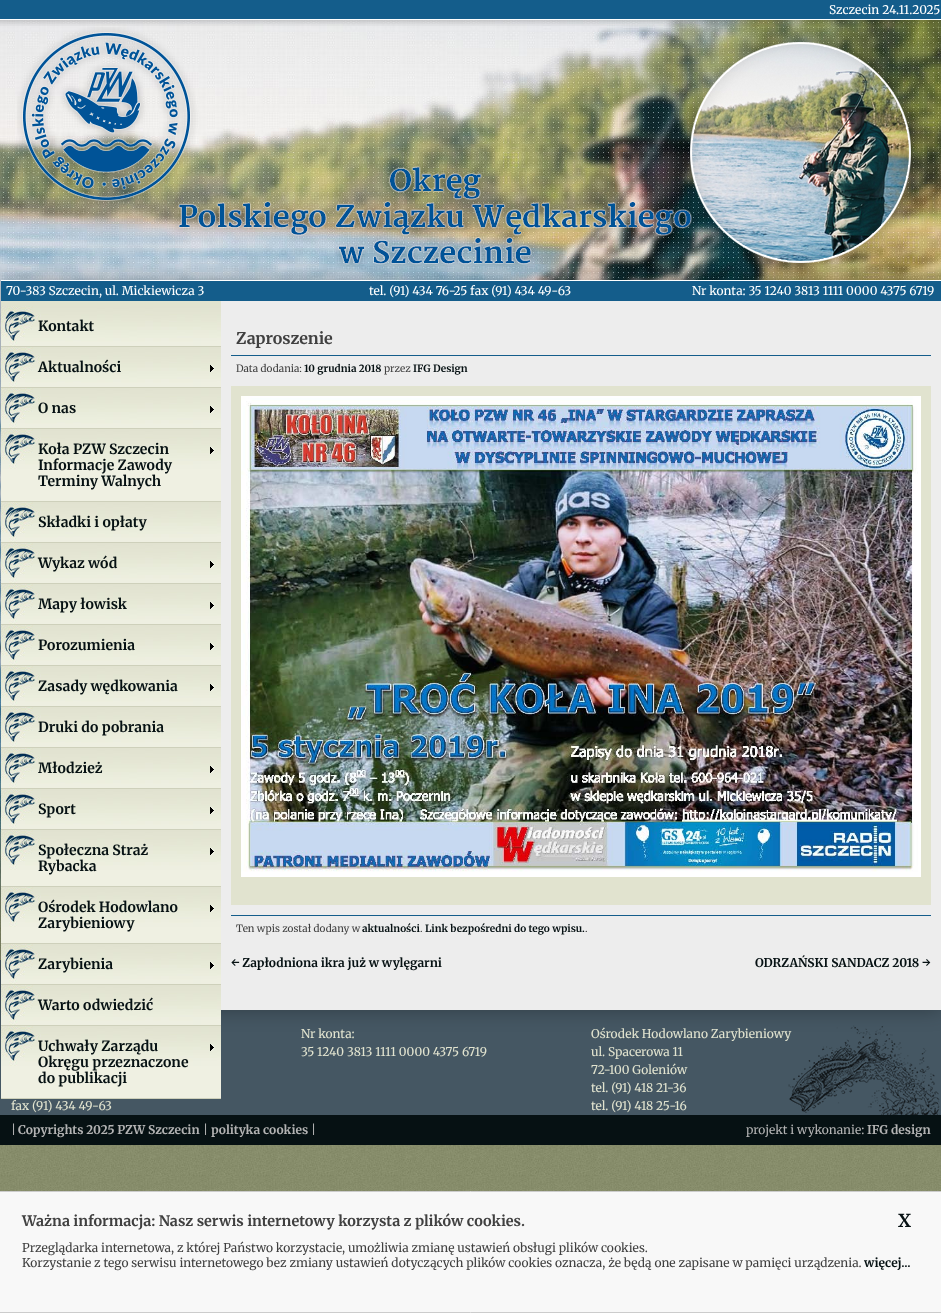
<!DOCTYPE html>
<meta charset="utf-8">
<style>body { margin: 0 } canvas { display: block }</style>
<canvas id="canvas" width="941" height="1313"></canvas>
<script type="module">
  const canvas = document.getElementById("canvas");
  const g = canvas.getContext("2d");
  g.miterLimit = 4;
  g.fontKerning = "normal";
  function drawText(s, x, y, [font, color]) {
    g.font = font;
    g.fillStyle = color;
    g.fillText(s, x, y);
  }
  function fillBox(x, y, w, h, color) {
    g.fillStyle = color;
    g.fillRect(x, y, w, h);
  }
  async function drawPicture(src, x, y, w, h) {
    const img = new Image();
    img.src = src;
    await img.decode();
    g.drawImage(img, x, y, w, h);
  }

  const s1 = ["12px Merriweather", "#FFFFFF"];
  const s2 = ["bold 14px Merriweather", "#061113"];
  const s3 = ["bold 16px Merriweather", "#404040"];
  const s4 = ["10px Merriweather", "#404040"];
  const s5 = ["bold 10px Merriweather", "#061113"];
  const s6 = ["bold 12px Merriweather", "#061113"];
  const s7 = ["12px Merriweather", "#E1E3CF"];
  const s8 = ["12px Merriweather", "#B3B3B3"];
  const s9 = ["bold 12px Merriweather", "#B3B3B3"];
  const s10 = ["bold 14.4px Merriweather", "#404040"];
  const s11 = ["bold 18px Merriweather", "#061113"];
  const s12 = ["12px Merriweather", "#404040"];

  fillBox(0, 0, 941, 1313, "#FFFFFF");
  await drawPicture("pic1.png", 0, 930, 941, 261);
  await drawPicture("pic3.png", 0, 20, 941, 910);
  await drawPicture("pic2.png", 0, 0, 941, 26);
  drawText("Szczecin 24.11.2025", 829, 14, s1);
  fillBox(0, 960, 941, 155, "#455763");
  await drawPicture("pic11.png", 788, 1025, 152, 90);
  g.fillStyle = "rgba(0, 0, 0, 0.3)";
  g.filter = "blur(10px)";
  g.beginPath();
  g.rect(1, 280, 940, 730);
  g.fill();
  g.filter = "none";
  await drawPicture("pic4.png", 17, 27, 905, 247);
  await drawPicture("pic5.png", 1, 301, 940, 709);
  fillBox(1, 281, 940, 20, "#145D8B");
  fillBox(1, 280, 940, 1, "#FFFFFF");
  drawText("70-383 Szczecin, ul. Mickiewicza 3", 6, 295, s1);
  drawText("tel. (91) 434 76-25 fax (91) 434 49-63", 369, 295, s1);
  drawText("Nr konta: 35 1240 3813 1111 0000 4375 6719", 692, 295, s1);
  await drawPicture("pic6.png", 1, 306, 220, 40);
  fillBox(1, 346, 220, 1, "#CED0BB");
  drawText("Kontakt", 38, 331, s2);
  await drawPicture("pic6.png", 1, 347, 220, 40);
  fillBox(1, 387, 220, 1, "#CED0BB");
  drawText("Aktualności", 38, 372, s2);
  await drawPicture("pic7.png", 210, 365, 5, 7);
  await drawPicture("pic6.png", 1, 388, 220, 40);
  fillBox(1, 428, 220, 1, "#CED0BB");
  drawText("O nas", 38, 413, s2);
  await drawPicture("pic7.png", 210, 406, 5, 7);
  await drawPicture("pic8.png", 1, 429, 220, 72);
  fillBox(1, 501, 220, 1, "#CED0BB");
  drawText("Koła PZW Szczecin", 38, 454, s2);
  await drawPicture("pic7.png", 210, 447, 5, 7);
  drawText("Informacje Zawody", 38, 470, s2);
  drawText("Terminy Walnych", 38, 486, s2);
  await drawPicture("pic6.png", 1, 502, 220, 40);
  fillBox(1, 542, 220, 1, "#CED0BB");
  drawText("Składki i opłaty", 38, 527, s2);
  await drawPicture("pic6.png", 1, 543, 220, 40);
  fillBox(1, 583, 220, 1, "#CED0BB");
  drawText("Wykaz wód", 38, 568, s2);
  await drawPicture("pic7.png", 210, 561, 5, 7);
  await drawPicture("pic6.png", 1, 584, 220, 40);
  fillBox(1, 624, 220, 1, "#CED0BB");
  drawText("Mapy łowisk", 38, 609, s2);
  await drawPicture("pic7.png", 210, 602, 5, 7);
  await drawPicture("pic6.png", 1, 625, 220, 40);
  fillBox(1, 665, 220, 1, "#CED0BB");
  drawText("Porozumienia", 38, 650, s2);
  await drawPicture("pic7.png", 210, 643, 5, 7);
  await drawPicture("pic6.png", 1, 666, 220, 40);
  fillBox(1, 706, 220, 1, "#CED0BB");
  drawText("Zasady wędkowania", 38, 691, s2);
  await drawPicture("pic7.png", 210, 684, 5, 7);
  await drawPicture("pic6.png", 1, 707, 220, 40);
  fillBox(1, 747, 220, 1, "#CED0BB");
  drawText("Druki do pobrania", 38, 732, s2);
  await drawPicture("pic6.png", 1, 748, 220, 40);
  fillBox(1, 788, 220, 1, "#CED0BB");
  drawText("Młodzież", 38, 773, s2);
  await drawPicture("pic7.png", 210, 766, 5, 7);
  await drawPicture("pic6.png", 1, 789, 220, 40);
  fillBox(1, 829, 220, 1, "#CED0BB");
  drawText("Sport", 38, 814, s2);
  await drawPicture("pic7.png", 210, 807, 5, 7);
  await drawPicture("pic9.png", 1, 830, 220, 56);
  fillBox(1, 886, 220, 1, "#CED0BB");
  drawText("Społeczna Straż", 38, 855, s2);
  await drawPicture("pic7.png", 210, 848, 5, 7);
  drawText("Rybacka", 38, 871, s2);
  await drawPicture("pic9.png", 1, 887, 220, 56);
  fillBox(1, 943, 220, 1, "#CED0BB");
  drawText("Ośrodek Hodowlano", 38, 912, s2);
  await drawPicture("pic7.png", 210, 905, 5, 7);
  drawText("Zarybieniowy", 38, 928, s2);
  await drawPicture("pic6.png", 1, 944, 220, 40);
  fillBox(1, 984, 220, 1, "#CED0BB");
  drawText("Zarybienia", 38, 969, s2);
  await drawPicture("pic7.png", 210, 962, 5, 7);
  await drawPicture("pic6.png", 1, 985, 220, 40);
  fillBox(1, 1025, 220, 1, "#CED0BB");
  drawText("Warto odwiedzić", 38, 1010, s2);
  await drawPicture("pic8.png", 1, 1026, 220, 72);
  fillBox(1, 1098, 220, 1, "#CED0BB");
  drawText("Uchwały Zarządu", 38, 1051, s2);
  await drawPicture("pic7.png", 210, 1044, 5, 7);
  drawText("Okręgu przeznaczone", 38, 1067, s2);
  drawText("do publikacji", 38, 1083, s2);
  fillBox(231, 355, 700, 1, "#145D8B");
  drawText("Zaproszenie", 236, 344, s3);
  drawText("Data dodania:", 236, 372, s4);
  drawText("10 grudnia 2018", 304, 372, s5);
  drawText("przez", 384, 372, s4);
  drawText("IFG Design", 413, 372, s5);
  fillBox(231, 386, 700, 519, "#E1E3CF");
  await drawPicture("pic10.png", 241, 396, 680, 481);
  fillBox(231, 915, 700, 1, "#145D8B");
  drawText("Ten wpis został dodany w", 236, 932, s4);
  drawText("aktualności", 362, 932, s5);
  drawText(".", 420, 932, s4);
  drawText("Link bezpośredni do tego wpisu.", 425, 932, s5);
  drawText(".", 585, 932, s4);
  drawText("← Zapłodniona ikra już w wylęgarni", 231, 967, s6);
  drawText("ODRZAŃSKI SANDACZ 2018 →", 755, 967, s6);
  drawText("Nr konta:", 301, 1038, s7);
  drawText("35 1240 3813 1111 0000 4375 6719", 301, 1056, s7);
  drawText("Ośrodek Hodowlano Zarybieniowy", 591, 1038, s7);
  drawText("ul. Spacerowa 11", 591, 1056, s7);
  drawText("72-100 Goleniów", 591, 1074, s7);
  drawText("tel. (91) 418 21-36", 591, 1092, s7);
  drawText("tel. (91) 418 25-16", 591, 1110, s7);
  drawText("fax (91) 434 49-63", 11, 1110, s7);
  fillBox(0, 1115, 941, 30, "#061113");
  drawText("|", 11, 1134, s8);
  drawText("Copyrights 2025 PZW Szczecin", 18, 1134, s9);
  drawText("|", 203, 1134, s8);
  drawText("polityka cookies", 211, 1134, s9);
  drawText("|", 311, 1134, s8);
  drawText("projekt i wykonanie:", 746, 1134, s8);
  drawText("IFG design", 867, 1134, s9);
  g.fillStyle = "#F8F8F8";
  g.beginPath();
  g.rect(-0.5, 1191.5, 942, 121);
  g.fill();
  g.strokeStyle = "#CCCCCC";
  g.stroke();
  drawText("Ważna informacja: Nasz serwis internetowy korzysta z plików cookies.", 22, 1226, s10);
  drawText("X", 898, 1227, s11);
  drawText("Przeglądarka internetowa, z której Państwo korzystacie, umożliwia zmianę ustawień obsługi plików cookies.", 22, 1252, s12);
  drawText("Korzystanie z tego serwisu internetowego bez zmiany ustawień dotyczących plików cookies oznacza, że będą one zapisane w pamięci urządzenia.", 22, 1267, s12);
  drawText("więcej...", 864, 1267, s6);
</script>
